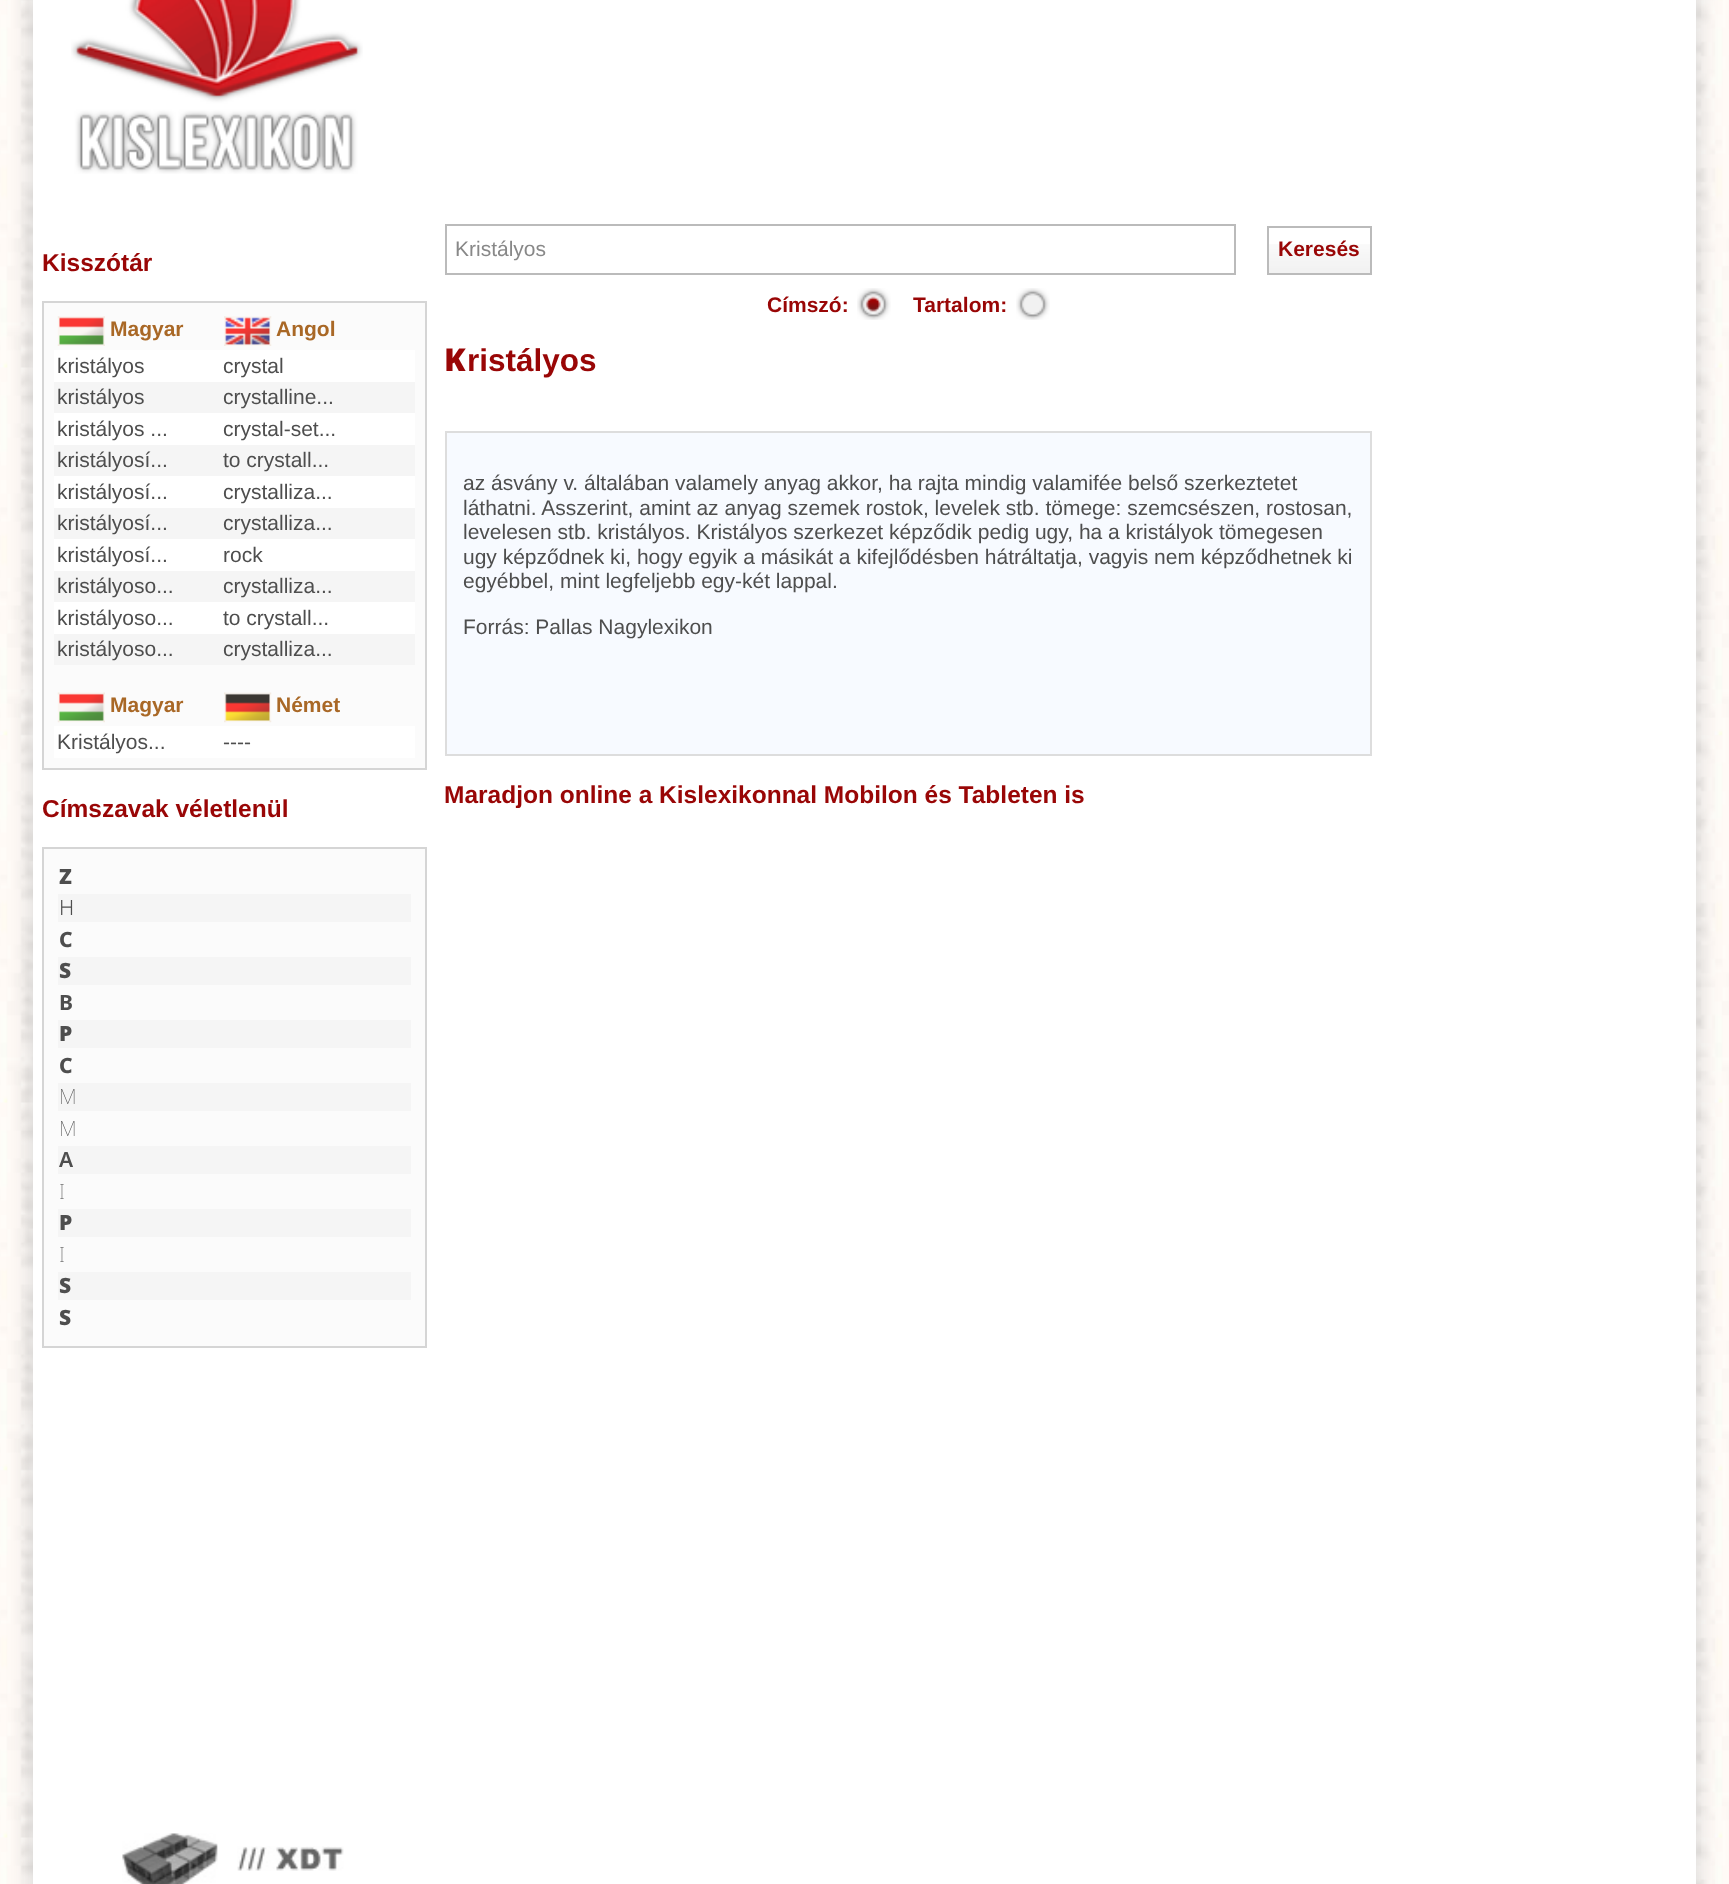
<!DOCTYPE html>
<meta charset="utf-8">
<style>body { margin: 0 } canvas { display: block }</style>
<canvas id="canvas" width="1729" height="1884"></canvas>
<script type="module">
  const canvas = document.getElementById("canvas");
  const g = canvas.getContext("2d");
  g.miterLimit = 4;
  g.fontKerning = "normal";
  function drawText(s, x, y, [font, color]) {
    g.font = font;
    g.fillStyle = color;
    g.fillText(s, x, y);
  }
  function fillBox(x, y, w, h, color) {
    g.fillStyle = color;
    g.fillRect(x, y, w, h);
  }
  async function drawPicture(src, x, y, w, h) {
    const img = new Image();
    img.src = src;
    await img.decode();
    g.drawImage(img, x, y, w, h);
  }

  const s1 = ["bold 24.5px Liberation Sans", "#990606"];
  const s2 = ["bold 21px Liberation Sans", "#A96826"];
  const s3 = ["21px Liberation Sans", "#4E4E4E"];
  const s4 = ["900 21px Noto Sans", "#4E4E4E"];
  const s5 = ["300 21px Noto Sans", "#4E4E4E"];
  const s6 = ["800 21px Noto Sans", "#4E4E4E"];
  const s7 = ["bold 21px Noto Sans", "#4E4E4E"];
  const s8 = ["100 21px Noto Sans", "#4E4E4E"];
  const s9 = ["600 21px Noto Sans", "#4E4E4E"];
  const s10 = ["21px Liberation Sans", "#888888"];
  const s11 = ["bold 21px Liberation Sans", "#990606"];
  const s12 = ["900 31.5px Noto Sans", "#990606"];
  const s13 = ["bold 31.5px Liberation Sans", "#990606"];

  fillBox(0, 0, 1729, 1884, "#FFFFFF");
  await drawPicture("pic1.png", 0, 0, 1729, 1884);
  g.fillStyle = "#D5D5D5";
  g.filter = "blur(13px)";
  g.beginPath();
  g.rect(33, -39, 1663, 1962);
  g.fill();
  g.filter = "none";
  fillBox(33, 0, 1663, 1884, "#FFFFFF");
  await drawPicture("pic2.png", 71, 0, 292, 174);
  drawText("Kisszótár", 42, 271, s1);
  g.fillStyle = "#FBFBFB";
  g.beginPath();
  g.rect(43, 302, 383, 467);
  g.fill();
  g.strokeStyle = "#D5D5D5";
  g.lineWidth = 2;
  g.stroke();
  await drawPicture("pic3.png", 57, 316, 48, 30);
  drawText("Magyar", 110, 336, s2);
  await drawPicture("pic4.png", 224, 316, 48, 30);
  drawText("Angol", 276, 336, s2);
  fillBox(54, 350, 361, 32, "#FFFFFF");
  drawText("kristályos", 57, 373, s3);
  drawText("crystal", 223, 373, s3);
  fillBox(54, 382, 361, 31, "#F5F5F5");
  drawText("kristályos", 57, 404, s3);
  drawText("crystalline...", 223, 404, s3);
  fillBox(54, 413, 361, 32, "#FFFFFF");
  drawText("kristályos ...", 57, 436, s3);
  drawText("crystal-set...", 223, 436, s3);
  fillBox(54, 445, 361, 31, "#F5F5F5");
  drawText("kristályosí...", 57, 467, s3);
  drawText("to crystall...", 223, 467, s3);
  fillBox(54, 476, 361, 32, "#FFFFFF");
  drawText("kristályosí...", 57, 499, s3);
  drawText("crystalliza...", 223, 499, s3);
  fillBox(54, 508, 361, 31, "#F5F5F5");
  drawText("kristályosí...", 57, 530, s3);
  drawText("crystalliza...", 223, 530, s3);
  fillBox(54, 539, 361, 32, "#FFFFFF");
  drawText("kristályosí...", 57, 562, s3);
  drawText("rock", 223, 562, s3);
  fillBox(54, 571, 361, 31, "#F5F5F5");
  drawText("kristályoso...", 57, 593, s3);
  drawText("crystalliza...", 223, 593, s3);
  fillBox(54, 602, 361, 32, "#FFFFFF");
  drawText("kristályoso...", 57, 625, s3);
  drawText("to crystall...", 223, 625, s3);
  fillBox(54, 634, 361, 31, "#F5F5F5");
  drawText("kristályoso...", 57, 656, s3);
  drawText("crystalliza...", 223, 656, s3);
  await drawPicture("pic5.png", 57, 692, 48, 31);
  drawText("Magyar", 110, 712, s2);
  await drawPicture("pic6.png", 224, 692, 48, 31);
  drawText("Német", 276, 712, s2);
  fillBox(54, 726, 361, 32, "#FFFFFF");
  drawText("Kristályos...", 57, 749, s3);
  drawText("----", 223, 749, s3);
  drawText("Címszavak véletlenül", 42, 817, s1);
  g.fillStyle = "#FBFBFB";
  g.beginPath();
  g.rect(43, 848, 383, 499);
  g.fill();
  g.stroke();
  drawText("Z", 59, 884, s4);
  fillBox(58, 894, 353, 28, "#F5F5F5");
  drawText("H", 59, 915, s5);
  drawText("C", 59, 947, s6);
  fillBox(58, 957, 353, 28, "#F5F5F5");
  drawText("S", 59, 978, s4);
  drawText("B", 59, 1010, s7);
  fillBox(58, 1020, 353, 28, "#F5F5F5");
  drawText("P", 59, 1041, s4);
  drawText("C", 59, 1073, s6);
  fillBox(58, 1083, 353, 28, "#F5F5F5");
  drawText("M", 59, 1104, s8);
  drawText("M", 59, 1136, s8);
  fillBox(58, 1146, 353, 28, "#F5F5F5");
  drawText("A", 59, 1167, s9);
  drawText("I", 59, 1199, s8);
  fillBox(58, 1209, 353, 28, "#F5F5F5");
  drawText("P", 59, 1230, s4);
  drawText("I", 59, 1262, s8);
  fillBox(58, 1272, 353, 28, "#F5F5F5");
  drawText("S", 59, 1293, s4);
  drawText("S", 59, 1325, s4);
  await drawPicture("pic7.png", 122, 1833, 96, 51);
  await drawPicture("pic8.png", 237, 1846, 107, 25);
  g.strokeStyle = "#BBBBBB";
  g.strokeRect(446, 225, 789, 49);
  drawText("Kristályos", 455, 256, s10);
  await drawPicture("pic9.png", 1269, 244, 101, 29);
  g.strokeRect(1268, 227, 103, 47);
  drawText("Keresés", 1278, 256, s11);
  drawText("Címszó:", 767, 312, s11);
  await drawPicture("pic10.png", 857, 288, 34, 32);
  drawText("Tartalom:", 913, 312, s11);
  await drawPicture("pic11.png", 1016, 288, 34, 32);
  drawText("K", 444, 371, s12);
  drawText("ristályos", 467, 371, s13);
  g.fillStyle = "#F7FAFF";
  g.beginPath();
  g.rect(446, 432, 925, 323);
  g.fill();
  g.strokeStyle = "#DDDDDD";
  g.stroke();
  drawText("az ásvány v. általában valamely anyag akkor, ha rajta mindig valamifée belső szerkeztetet", 463, 490, s3);
  drawText("láthatni. Asszerint, amint az anyag szemek rostok, levelek stb. tömege: szemcsészen, rostosan,", 463, 515, s3);
  drawText("levelesen stb. kristályos. Kristályos szerkezet képződik pedig ugy, ha a kristályok tömegesen", 463, 539, s3);
  drawText("ugy képződnek ki, hogy egyik a másikát a kifejlődésben hátráltatja, vagyis nem képződhetnek ki", 463, 564, s3);
  drawText("egyébbel, mint legfeljebb egy-két lappal.", 463, 588, s3);
  drawText("Forrás: Pallas Nagylexikon", 463, 634, s3);
  drawText("Maradjon online a Kislexikonnal Mobilon és Tableten is", 444, 803, s1);
</script>
